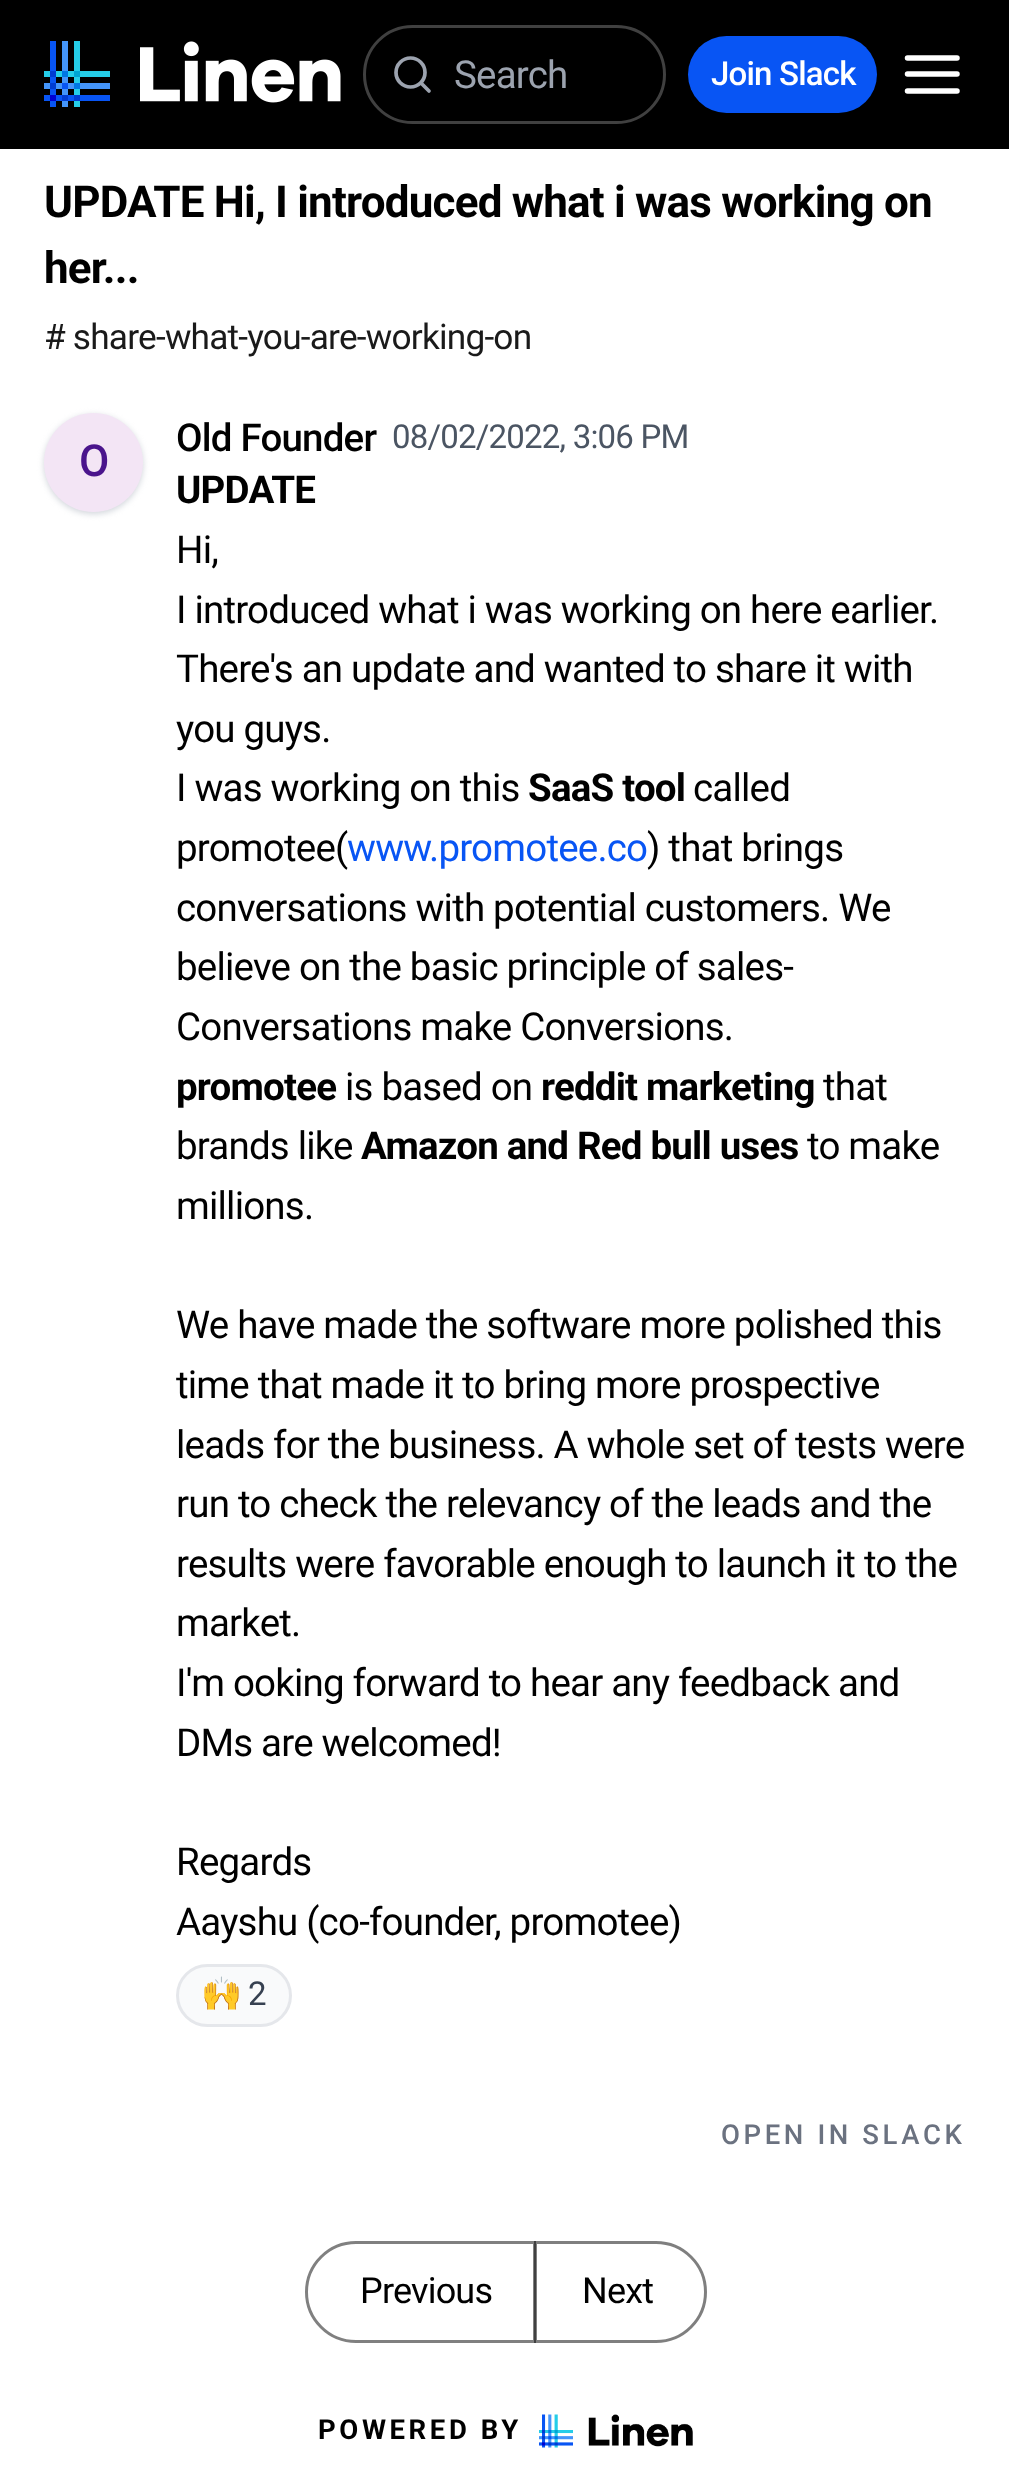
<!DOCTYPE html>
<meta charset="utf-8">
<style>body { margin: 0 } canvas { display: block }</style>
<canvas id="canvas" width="1009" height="2467"></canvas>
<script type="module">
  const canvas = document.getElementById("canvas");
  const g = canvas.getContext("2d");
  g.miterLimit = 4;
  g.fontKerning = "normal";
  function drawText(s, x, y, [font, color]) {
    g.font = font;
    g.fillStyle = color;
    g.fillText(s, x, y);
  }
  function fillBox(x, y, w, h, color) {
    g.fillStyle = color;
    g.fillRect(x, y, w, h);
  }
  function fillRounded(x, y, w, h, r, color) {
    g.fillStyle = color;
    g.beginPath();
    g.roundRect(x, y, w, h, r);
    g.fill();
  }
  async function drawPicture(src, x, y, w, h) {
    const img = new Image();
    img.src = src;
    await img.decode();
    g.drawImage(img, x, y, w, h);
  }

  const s1 = ["38.5px Roboto", "#9CA3AF"];
  const s2 = ["500 33px Roboto", "#FFFFFF"];
  const s3 = ["bold 44px Roboto", "#000000"];
  const s4 = ["35.25px Roboto", "#1A1A1A"];
  const s5 = ["500 44px Roboto", "#4A148C"];
  const s6 = ["500 38.5px Roboto", "#000000"];
  const s7 = ["33px Roboto", "#4B5563"];
  const s8 = ["bold 38.5px Roboto", "#000000"];
  const s9 = ["38.5px Roboto", "#000000"];
  const s10 = ["38.5px Roboto", "#0855F4"];
  const s11 = ["33px Noto Color Emoji", "#374151"];
  const s12 = ["33px Roboto", "#374151"];
  const s13 = ["500 27.5px Roboto", "#6B7280"];
  const s14 = ["36px Roboto", "#000000"];
  const s15 = ["bold 27.5px Roboto", "#000000"];

  fillBox(0, 0, 1009, 2467, "#FFFFFF");
  fillBox(0, 0, 1009, 149, "#000000");
  await drawPicture("pic1.png", 44, 41, 297, 66);
  g.beginPath();
  g.roundRect(364.5, 26.5, 300, 96, 48);
  g.strokeStyle = "#404040";
  g.lineWidth = 3;
  g.stroke();
  g.beginPath();
  g.arc(410.5, 72.5, 14.5, 0, Math.PI * 2);
  g.strokeStyle = "#9CA3AF";
  g.lineWidth = 3.7;
  g.stroke();
  g.beginPath();
  g.moveTo(429, 91);
  g.lineTo(421, 83);
  g.lineCap = "round";
  g.lineJoin = "round";
  g.stroke();
  g.letterSpacing = "-0.8px";
  drawText("Search", 454, 88, s1);
  fillRounded(688, 36, 189, 77, 38.5, "#0855F4");
  drawText("Join Slack", 711, 85, s2);
  g.beginPath();
  g.moveTo(907.5, 74);
  g.lineTo(957, 74);
  g.moveTo(907.5, 58);
  g.lineTo(957, 58);
  g.moveTo(907.5, 91);
  g.lineTo(957, 91);
  g.strokeStyle = "#FFFFFF";
  g.lineWidth = 5.5;
  g.stroke();
  drawText("UPDATE Hi, I introduced what i was working on", 44, 217, s3);
  drawText("her...", 44, 283, s3);
  drawText("# share-what-you-are-working-on", 44, 349, s4);
  g.fillStyle = "#D1D5DB";
  g.filter = "blur(3px)";
  g.beginPath();
  g.roundRect(44, 415, 99, 99, 49.5);
  g.fill();
  g.filter = "none";
  g.fillStyle = "#F3E5F5";
  g.beginPath();
  g.arc(93.5, 462.5, 49.5, 0, Math.PI * 2);
  g.fill();
  drawText("O", 79, 476, s5);
  drawText("Old Founder", 176, 451, s6);
  drawText("08/02/2022, 3:06 PM", 392, 448, s7);
  drawText("UPDATE", 176, 503, s8);
  drawText("Hi,", 176, 563, s9);
  drawText("I introduced what i was working on here earlier.", 176, 623, s9);
  drawText("There's an update and wanted to share it with", 176, 682, s9);
  drawText("you guys.", 176, 742, s9);
  drawText("I was working on this", 176, 801, s9);
  drawText("SaaS tool", 528, 801, s8);
  drawText("called", 693, 801, s9);
  drawText("promotee(", 176, 861, s9);
  drawText("www.promotee.co", 347, 861, s10);
  drawText(") that brings", 647, 861, s9);
  drawText("conversations with potential customers. We", 176, 921, s9);
  drawText("believe on the basic principle of sales-", 176, 980, s9);
  drawText("Conversations make Conversions.", 176, 1040, s9);
  drawText("promotee", 176, 1100, s8);
  drawText("is based on", 345, 1100, s9);
  drawText("reddit marketing", 541, 1100, s8);
  drawText("that", 823, 1100, s9);
  drawText("brands like", 176, 1159, s9);
  drawText("Amazon and Red bull uses", 361, 1159, s8);
  drawText("to make", 807, 1159, s9);
  drawText("millions.", 176, 1219, s9);
  drawText("We have made the software more polished this", 176, 1338, s9);
  drawText("time that made it to bring more prospective", 176, 1398, s9);
  drawText("leads for the business. A whole set of tests were", 176, 1458, s9);
  drawText("run to check the relevancy of the leads and the", 176, 1517, s9);
  drawText("results were favorable enough to launch it to the", 176, 1577, s9);
  drawText("market.", 176, 1636, s9);
  drawText("I'm ooking forward to hear any feedback and", 176, 1696, s9);
  drawText("DMs are welcomed!", 176, 1756, s9);
  drawText("Regards", 176, 1875, s9);
  drawText("Aayshu (co-founder, promotee)", 176, 1935, s9);
  g.fillStyle = "#F9FAFB";
  g.beginPath();
  g.roundRect(177.5, 1965.5, 113, 60, 30);
  g.fill();
  g.strokeStyle = "#E5E7EB";
  g.lineWidth = 3;
  g.lineJoin = "miter";
  g.stroke();
  drawText("🙌", 201, 2005, s11);
  drawText("2", 248, 2005, s12);
  g.letterSpacing = "3.6px";
  drawText("OPEN IN SLACK", 721, 2144, s13);
  g.beginPath();
  g.roundRect(306.5, 2242.5, 228, 99, [49.5, 0, 0, 49.5]);
  g.strokeStyle = "#808080";
  g.stroke();
  g.letterSpacing = "-0.8px";
  drawText("Previous", 360, 2303, s14);
  g.beginPath();
  g.roundRect(535.5, 2242.5, 170, 99, [0, 49.5, 49.5, 0]);
  g.strokeStyle = "rgba(0, 0, 0, 0.5)";
  g.stroke();
  drawText("Next", 582, 2303, s14);
  g.letterSpacing = "3.6px";
  drawText("POWERED BY", 318, 2439, s15);
  await drawPicture("pic2.png", 539, 2414, 154, 34);
</script>
